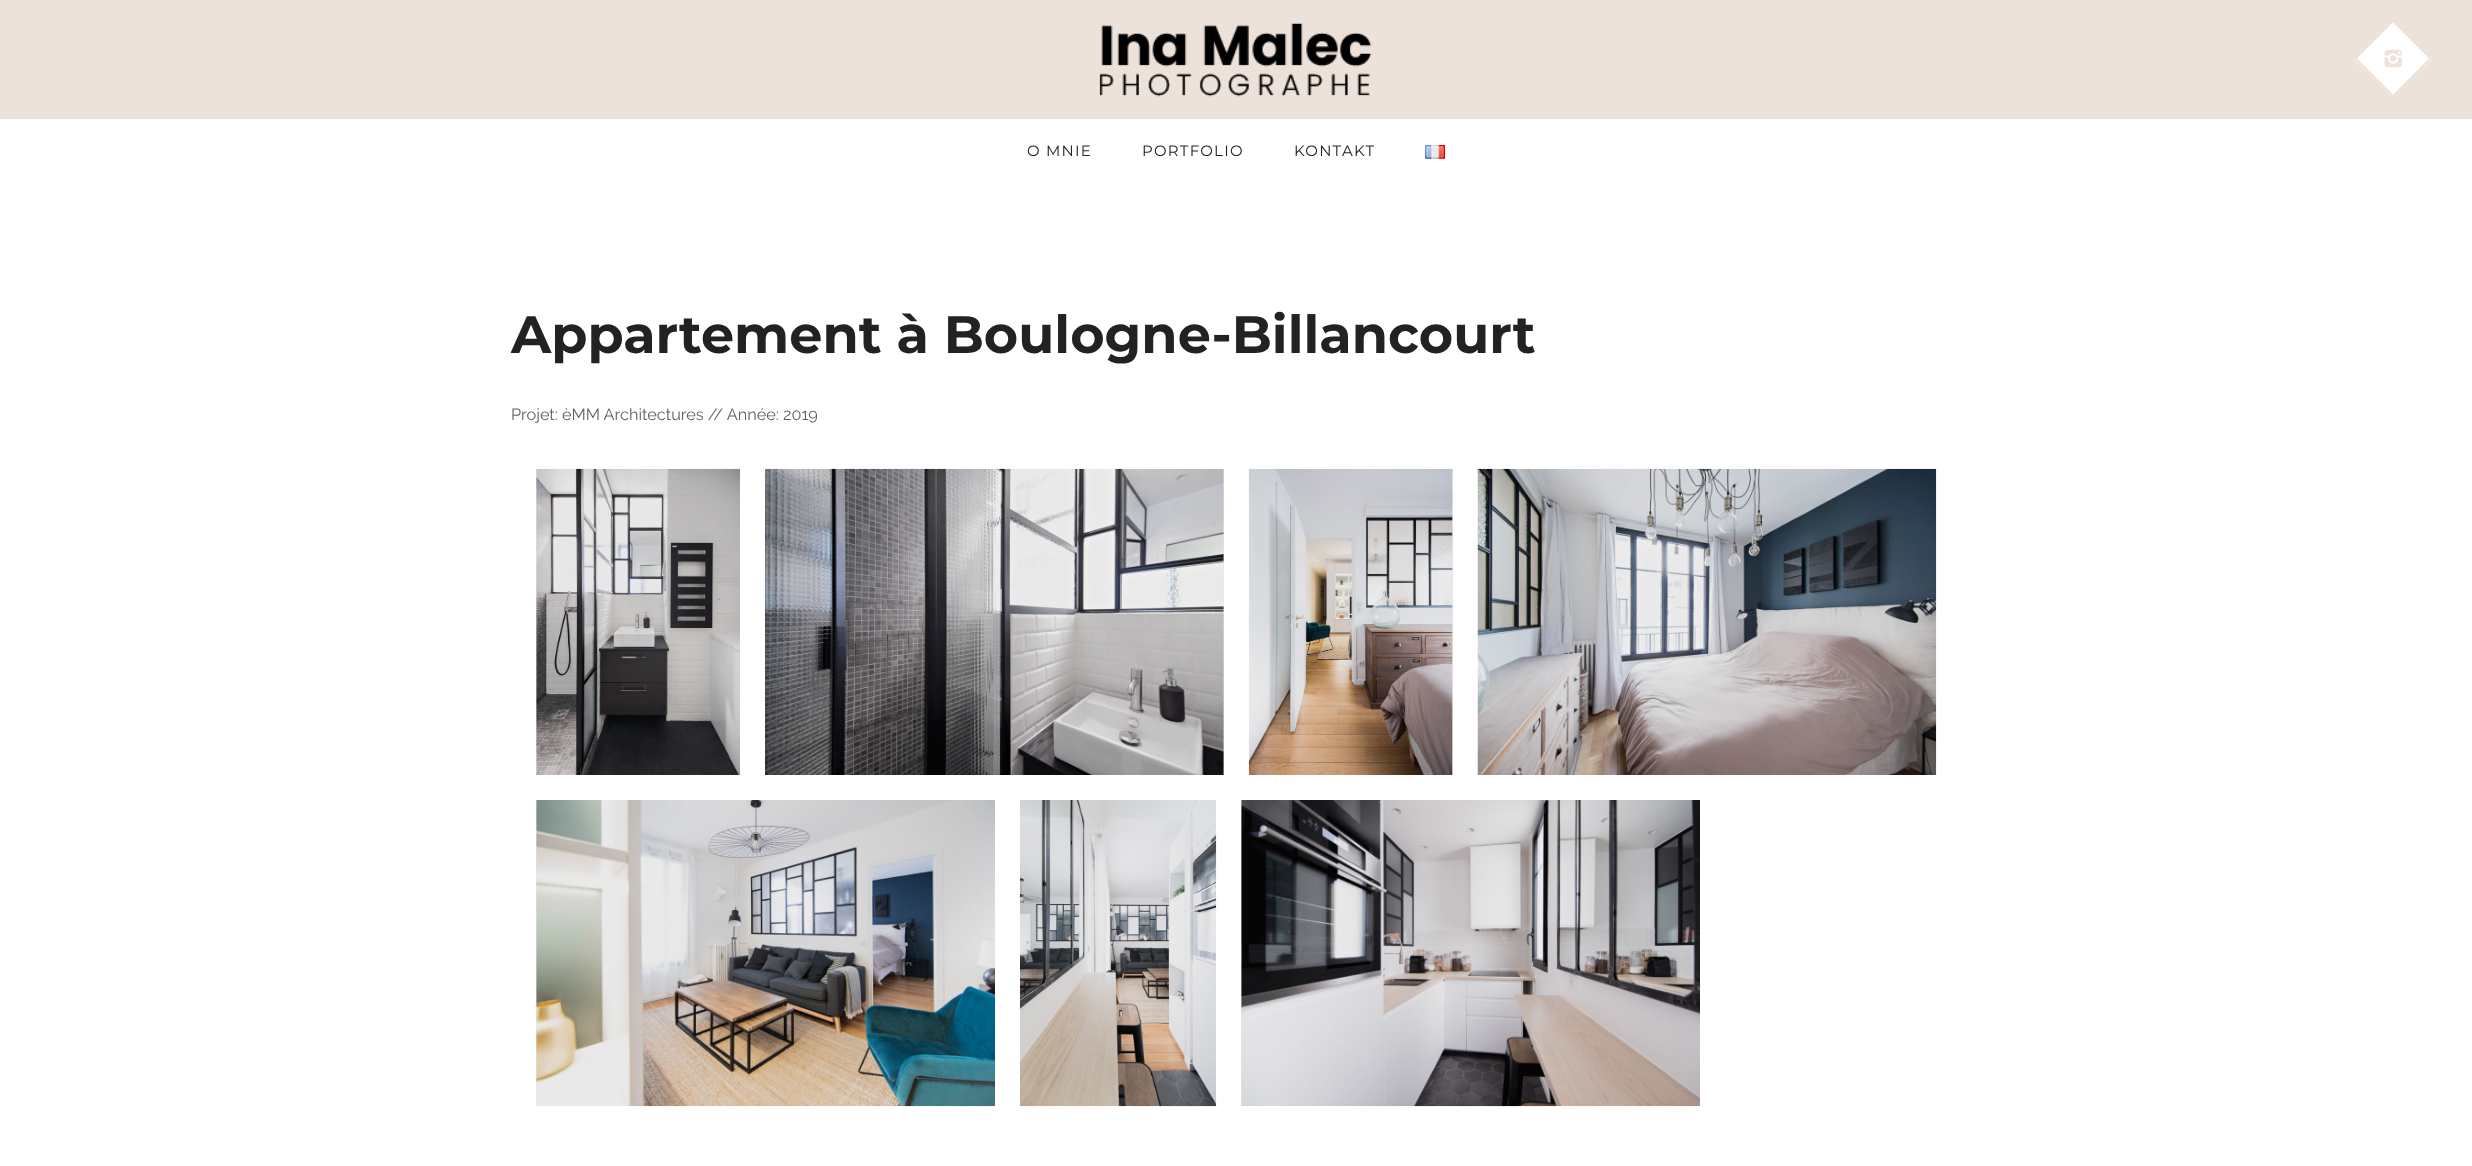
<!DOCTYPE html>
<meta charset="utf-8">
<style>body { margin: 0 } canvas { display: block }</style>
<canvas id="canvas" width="2472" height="1166"></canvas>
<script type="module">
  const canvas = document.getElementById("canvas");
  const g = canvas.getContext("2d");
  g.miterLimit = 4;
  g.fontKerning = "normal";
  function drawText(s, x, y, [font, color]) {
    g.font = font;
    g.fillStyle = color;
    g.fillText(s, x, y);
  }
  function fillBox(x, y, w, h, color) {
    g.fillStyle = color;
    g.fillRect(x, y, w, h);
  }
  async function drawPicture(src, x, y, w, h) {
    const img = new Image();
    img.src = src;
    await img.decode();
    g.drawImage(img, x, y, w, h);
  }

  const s1 = ["15px Montserrat", "#222222"];
  const s2 = ["bold 52.5px Montserrat", "#222222"];
  const s3 = ["16.25px Raleway", "#5F6263"];

  fillBox(0, 0, 2472, 1166, "#FFFFFF");
  fillBox(0, 0, 2472, 119, "#EDE2DA");
  await drawPicture("pic1.png", 1099, 23, 273, 74);
  g.fillStyle = "#FFFFFF";
  g.beginPath();
  g.moveTo(2393, 19);
  g.lineTo(2433, 59);
  g.lineTo(2393, 98);
  g.lineTo(2353, 59);
  g.closePath();
  g.fill();
  g.beginPath();
  g.moveTo(2393, 20.5);
  g.lineTo(2431, 58.5);
  g.lineTo(2393, 96.5);
  g.lineTo(2355, 58.5);
  g.closePath();
  g.strokeStyle = "#EDE2DA";
  g.lineWidth = 2.5;
  g.stroke();
  await drawPicture("pic2.png", 2384, 49, 18, 19);
  g.letterSpacing = "1.25px";
  drawText("O MNIE", 1027, 156, s1);
  drawText("PORTFOLIO", 1142, 156, s1);
  drawText("KONTAKT", 1294, 156, s1);
  await drawPicture("pic3.png", 1425, 145, 20, 14);
  g.letterSpacing = "0px";
  drawText("Appartement à Boulogne-Billancourt", 511, 353, s2);
  drawText("Projet: èMM Architectures // Année: 2019", 511, 420, s3);
  fillBox(536, 469, 1, 306, "#E5E5E5");
  await drawPicture("pic4.png", 536, 468, 204, 307);
  fillBox(1223, 469, 1, 306, "#E5E5E5");
  await drawPicture("pic5.png", 765, 468, 459, 307);
  fillBox(1452, 469, 1, 306, "#E5E5E5");
  await drawPicture("pic6.png", 1248, 468, 205, 307);
  await drawPicture("pic7.png", 1477, 468, 460, 307);
  fillBox(536, 800, 1, 306, "#E5E5E5");
  await drawPicture("pic8.png", 536, 800, 459, 307);
  await drawPicture("pic9.png", 1020, 800, 197, 307);
  fillBox(1241, 800, 1, 306, "#E5E5E5");
  await drawPicture("pic10.png", 1241, 800, 459, 307);
</script>
